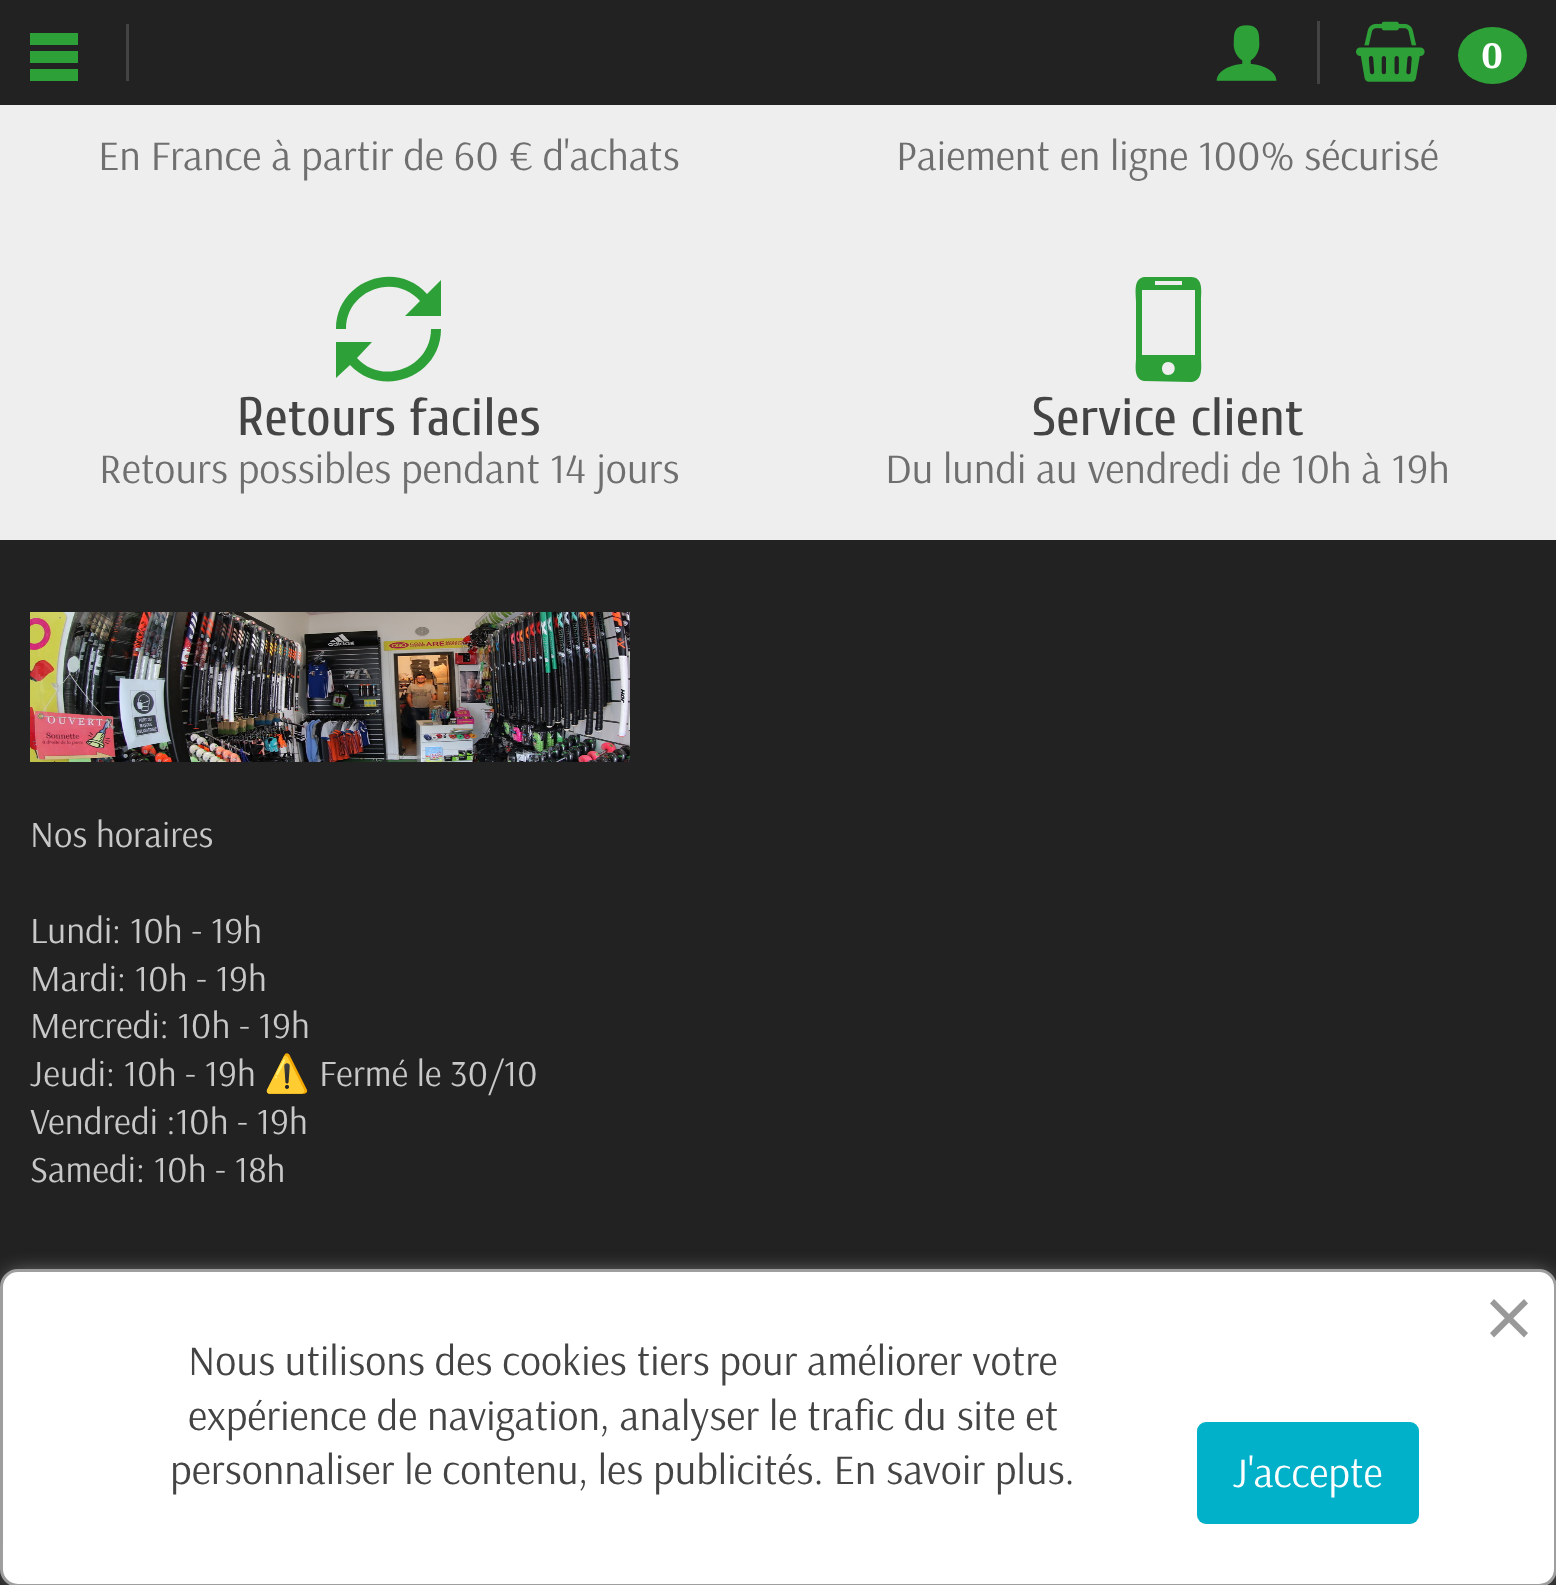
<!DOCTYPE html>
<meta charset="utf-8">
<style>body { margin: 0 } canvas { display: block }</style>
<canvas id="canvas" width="1556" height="1585"></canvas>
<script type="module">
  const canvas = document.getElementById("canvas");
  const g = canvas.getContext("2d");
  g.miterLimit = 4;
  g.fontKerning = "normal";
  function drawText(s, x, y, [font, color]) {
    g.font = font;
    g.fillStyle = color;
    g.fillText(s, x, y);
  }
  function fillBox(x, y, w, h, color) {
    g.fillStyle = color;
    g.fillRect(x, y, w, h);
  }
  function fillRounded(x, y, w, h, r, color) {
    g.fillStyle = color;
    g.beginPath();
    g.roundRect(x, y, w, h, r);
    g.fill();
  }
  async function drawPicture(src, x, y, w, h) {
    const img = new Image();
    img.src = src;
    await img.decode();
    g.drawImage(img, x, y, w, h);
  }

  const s1 = ["bold 38px Arsenal", "#FFFFFF"];
  const s2 = ["42px Arsenal", "#6F6F6F"];
  const s3 = ["54px Cuprum", "#444444"];
  const s4 = ["36.75px Arsenal", "#C8C8C8"];
  const s5 = ["36.75px Noto Color Emoji", "#C8C8C8"];
  const s6 = ["42px Arsenal", "#444444"];
  const s7 = ["42px Arsenal", "#FFFFFF"];

  fillBox(0, 0, 1556, 1585, "#EEEEEE");
  fillBox(0, 0, 1556, 105, "#222222");
  fillBox(126, 24, 3, 57, "#434343");
  g.fillStyle = "#2DA038";
  g.beginPath();
  g.moveTo(30, 33);
  g.lineTo(30, 45);
  g.lineTo(78, 45);
  g.lineTo(78, 33);
  g.closePath();
  g.moveTo(30, 63);
  g.lineTo(78, 63);
  g.lineTo(78, 51);
  g.lineTo(30, 51);
  g.closePath();
  g.moveTo(30, 81);
  g.lineTo(78, 81);
  g.lineTo(78, 69);
  g.lineTo(30, 69);
  g.closePath();
  g.fill();
  await drawPicture("pic1.png", 1216, 25, 61, 56);
  fillBox(1317, 21, 3, 63, "#434343");
  await drawPicture("pic2.png", 1356, 21, 69, 61);
  g.fillStyle = "#2DA038";
  g.beginPath();
  g.ellipse(1492.5, 55.5, 34.5, 28.5, 0, 0, Math.PI * 2);
  g.fill();
  drawText("0", 1481, 68, s1);
  drawText("En France à partir de 60 € d'achats", 98, 170, s2);
  drawText("Paiement en ligne 100% sécurisé", 896, 170, s2);
  g.fillStyle = "#2DA038";
  g.beginPath();
  g.moveTo(427, 294);
  g.bezierCurveTo(396, 259, 336, 281, 336, 329);
  g.lineTo(346, 329);
  g.bezierCurveTo(346, 290, 395, 272, 420, 301);
  g.lineTo(405, 316);
  g.lineTo(441, 316);
  g.lineTo(441, 280);
  g.closePath();
  g.moveTo(431, 329);
  g.bezierCurveTo(431, 368, 382, 386, 357, 358);
  g.lineTo(372, 342);
  g.lineTo(336, 342);
  g.lineTo(336, 378);
  g.lineTo(350, 365);
  g.bezierCurveTo(382, 399, 441, 377, 441, 329);
  g.closePath();
  g.fill();
  drawText("Retours faciles", 237, 435, s3);
  drawText("Retours possibles pendant 14 jours", 99, 483, s2);
  g.fillStyle = "#2DA038";
  g.beginPath();
  g.moveTo(1191, 277);
  g.lineTo(1144, 277);
  g.bezierCurveTo(1133, 279, 1136, 293, 1136, 301);
  g.lineTo(1136, 358);
  g.bezierCurveTo(1136, 365, 1133, 379, 1144, 381);
  g.lineTo(1191, 382);
  g.bezierCurveTo(1204, 381, 1201, 365, 1201, 358);
  g.lineTo(1201, 301);
  g.bezierCurveTo(1201, 293, 1204, 277, 1191, 277);
  g.closePath();
  g.moveTo(1155, 281);
  g.lineTo(1182, 281);
  g.lineTo(1182, 285);
  g.lineTo(1155, 285);
  g.closePath();
  g.moveTo(1168, 375);
  g.bezierCurveTo(1160, 375, 1160, 362, 1168, 362);
  g.bezierCurveTo(1177, 362, 1177, 375, 1168, 375);
  g.closePath();
  g.moveTo(1195, 355);
  g.lineTo(1142, 355);
  g.lineTo(1142, 290);
  g.lineTo(1195, 290);
  g.closePath();
  g.fill();
  drawText("Service client", 1032, 435, s3);
  drawText("Du lundi au vendredi de 10h à 19h", 885, 483, s2);
  fillBox(0, 540, 1556, 1045, "#222222");
  await drawPicture("pic3.png", 30, 612, 600, 150);
  drawText("Nos horaires", 30, 847, s4);
  drawText("Lundi: 10h - 19h", 30, 943, s4);
  drawText("Mardi: 10h - 19h", 30, 991, s4);
  drawText("Mercredi: 10h - 19h", 30, 1038, s4);
  drawText("Jeudi: 10h - 19h", 30, 1086, s4);
  drawText("⚠️", 264, 1086, s5);
  drawText("Fermé le 30/10", 319, 1086, s4);
  drawText("Vendredi :10h - 19h", 30, 1134, s4);
  drawText("Samedi: 10h - 18h", 30, 1182, s4);
  g.fillStyle = "#9E9E9E";
  g.filter = "blur(10.5px)";
  g.beginPath();
  g.roundRect(6, 1275, 1545, 306, 12);
  g.fill();
  g.filter = "none";
  g.fillStyle = "#FFFFFF";
  g.beginPath();
  g.roundRect(1.5, 1270.5, 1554, 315, 16.5);
  g.fill();
  g.strokeStyle = "#9E9E9E";
  g.lineWidth = 3;
  g.stroke();
  g.fillStyle = "#999999";
  g.beginPath();
  g.moveTo(1490, 1333);
  g.lineTo(1524, 1299);
  g.lineTo(1528, 1303.5);
  g.lineTo(1494, 1337.5);
  g.closePath();
  g.fill();
  g.beginPath();
  g.moveTo(1494, 1299);
  g.lineTo(1528, 1333);
  g.lineTo(1524, 1337.5);
  g.lineTo(1490, 1303.5);
  g.closePath();
  g.fill();
  drawText("Nous utilisons des cookies tiers pour améliorer votre", 188, 1375, s6);
  drawText("expérience de navigation, analyser le trafic du site et", 188, 1430, s6);
  drawText("personnaliser le contenu, les publicités. En savoir plus.", 170, 1484, s6);
  fillRounded(1197, 1422, 222, 102, 9, "#00B1C9");
  drawText("J'accepte", 1233, 1487, s7);
</script>
